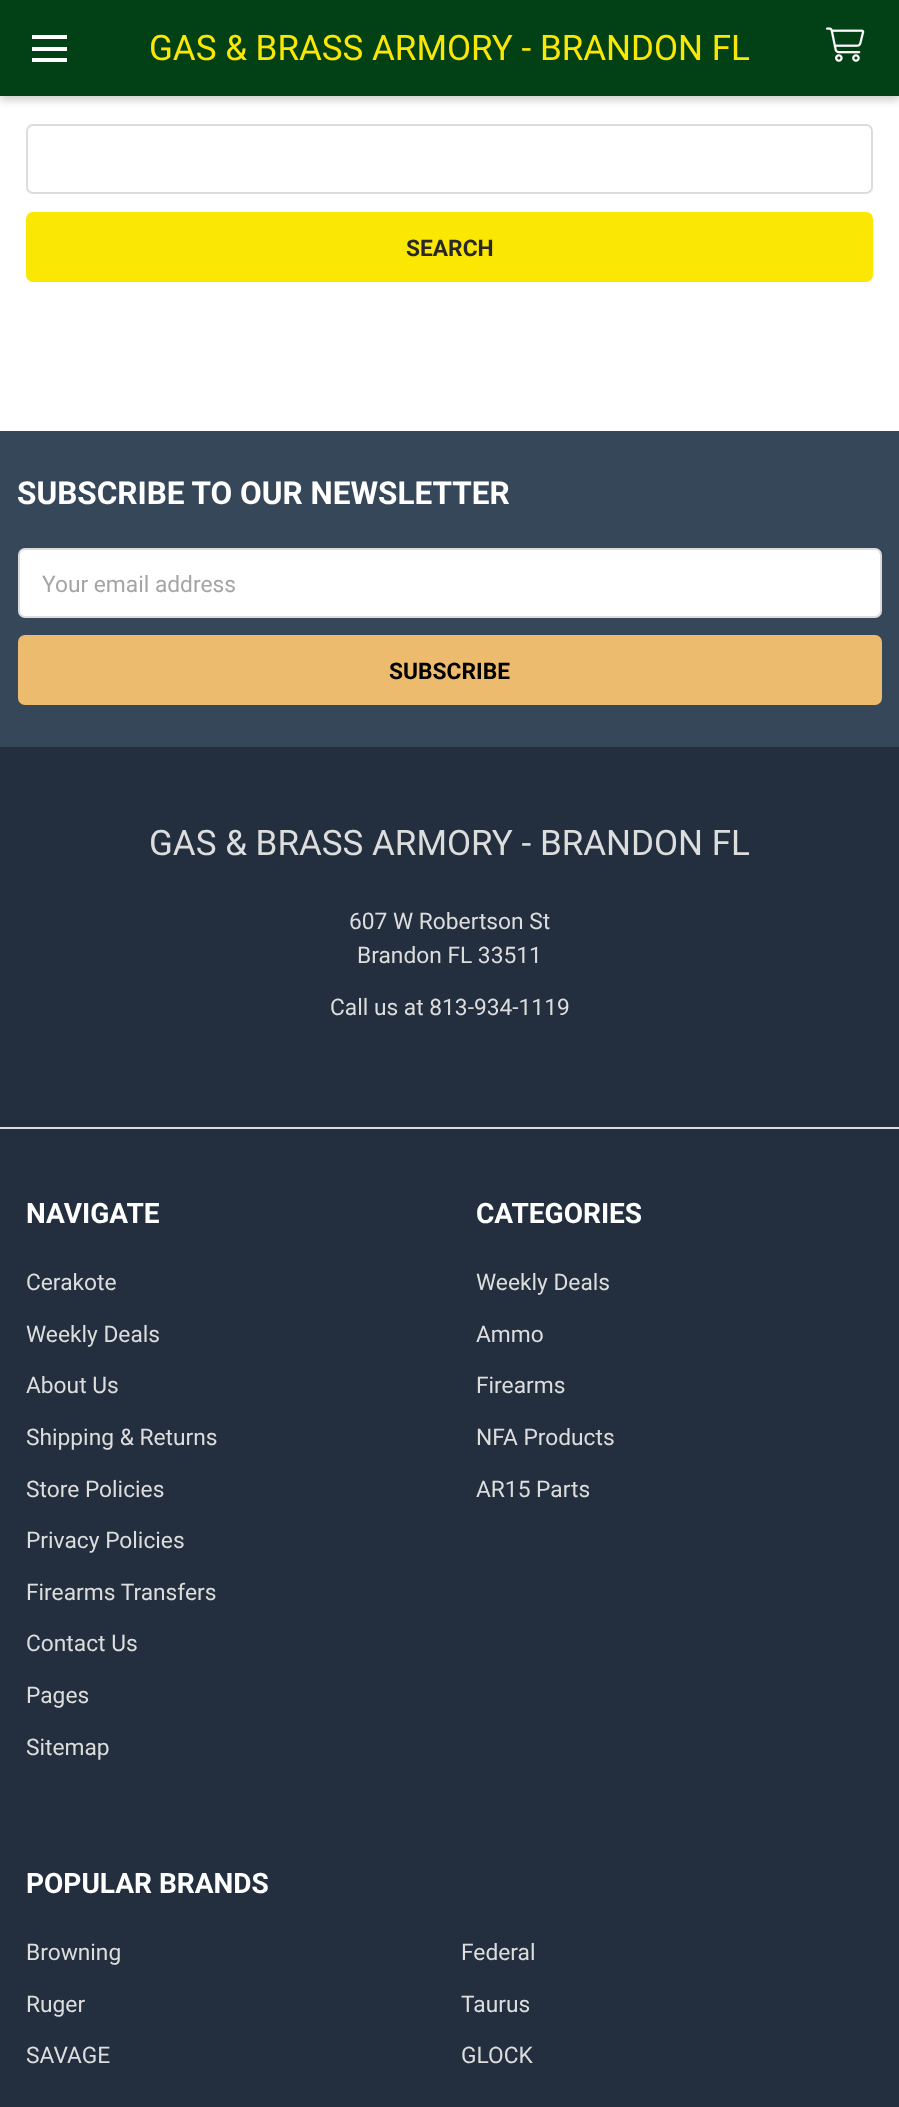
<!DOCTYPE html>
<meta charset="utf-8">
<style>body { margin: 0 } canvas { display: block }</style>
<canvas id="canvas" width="899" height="2107"></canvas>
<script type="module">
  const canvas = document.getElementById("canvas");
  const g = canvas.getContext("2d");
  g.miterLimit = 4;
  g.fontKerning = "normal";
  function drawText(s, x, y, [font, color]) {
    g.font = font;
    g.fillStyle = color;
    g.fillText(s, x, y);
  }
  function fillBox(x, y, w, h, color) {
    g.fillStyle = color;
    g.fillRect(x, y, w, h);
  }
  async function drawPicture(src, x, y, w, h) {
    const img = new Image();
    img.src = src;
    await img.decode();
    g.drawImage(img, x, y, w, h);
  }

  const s1 = ["35px Roboto", "#FAE704"];
  const s2 = ["bold 22.75px Roboto", "#282828"];
  const s3 = ["bold 31.5px Roboto", "#FFFFFF"];
  const s4 = ["22.75px Roboto", "#A5A5A5"];
  const s5 = ["bold 22.75px Roboto", "#000000"];
  const s6 = ["35px Roboto", "#DDDDDD"];
  const s7 = ["22.75px Roboto", "#DDDDDD"];
  const s8 = ["bold 28px Roboto", "#FFFFFF"];

  fillBox(0, 0, 899, 2107, "#FFFFFF");
  g.fillStyle = "rgba(0, 0, 0, 0.2)";
  g.filter = "blur(4.5px)";
  g.beginPath();
  g.rect(0, 4, 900, 96);
  g.fill();
  g.filter = "none";
  fillBox(0, 0, 899, 96, "#024016");
  fillBox(32, 47, 35, 4, "#FFFFFF");
  fillBox(32, 35, 35, 4, "#FFFFFF");
  fillBox(32, 58, 35, 4, "#FFFFFF");
  drawText("GAS & BRASS ARMORY - BRANDON FL", 149, 60, s1);
  await drawPicture("pic1.png", 826, 27, 39, 35);
  g.beginPath();
  g.roundRect(27, 125, 845, 68, 6);
  g.strokeStyle = "#DCDCDC";
  g.lineWidth = 2;
  g.stroke();
  g.beginPath();
  g.roundRect(27, 213, 845, 68, 6);
  g.fill();
  g.strokeStyle = "#FAE704";
  g.stroke();
  drawText("SEARCH", 406, 256, s2);
  fillBox(0, 747, 899, 1360, "#232F3E");
  fillBox(0, 431, 899, 316, "#37475A");
  drawText("SUBSCRIBE TO OUR NEWSLETTER", 17, 504, s3);
  g.beginPath();
  g.roundRect(19, 549, 862, 68, 6);
  g.fill();
  g.strokeStyle = "#DCDCDC";
  g.stroke();
  drawText("Your email address", 42, 592, s4);
  g.fillStyle = "#EDBB6E";
  g.beginPath();
  g.roundRect(19, 636, 862, 68, 6);
  g.fill();
  g.strokeStyle = "#EDBB6E";
  g.stroke();
  drawText("SUBSCRIBE", 389, 679, s5);
  fillBox(0, 1127, 899, 2, "#DCDCDC");
  drawText("GAS & BRASS ARMORY - BRANDON FL", 149, 855, s6);
  drawText("607 W Robertson St", 349, 929, s7);
  drawText("Brandon FL 33511", 357, 963, s7);
  drawText("Call us at 813-934-1119", 330, 1015, s7);
  drawText("NAVIGATE", 26, 1223, s8);
  drawText("Cerakote", 26, 1290, s7);
  drawText("Weekly Deals", 26, 1342, s7);
  drawText("About Us", 26, 1393, s7);
  drawText("Shipping & Returns", 26, 1445, s7);
  drawText("Store Policies", 26, 1497, s7);
  drawText("Privacy Policies", 26, 1548, s7);
  drawText("Firearms Transfers", 26, 1600, s7);
  drawText("Contact Us", 26, 1651, s7);
  drawText("Pages", 26, 1703, s7);
  drawText("Sitemap", 26, 1755, s7);
  drawText("CATEGORIES", 476, 1223, s8);
  drawText("Weekly Deals", 476, 1290, s7);
  drawText("Ammo", 476, 1342, s7);
  drawText("Firearms", 476, 1393, s7);
  drawText("NFA Products", 476, 1445, s7);
  drawText("AR15 Parts", 476, 1497, s7);
  drawText("POPULAR BRANDS", 26, 1893, s8);
  drawText("Browning", 26, 1960, s7);
  drawText("Federal", 461, 1960, s7);
  drawText("Ruger", 26, 2012, s7);
  drawText("Taurus", 461, 2012, s7);
  drawText("SAVAGE", 26, 2063, s7);
  drawText("GLOCK", 461, 2063, s7);
</script>
